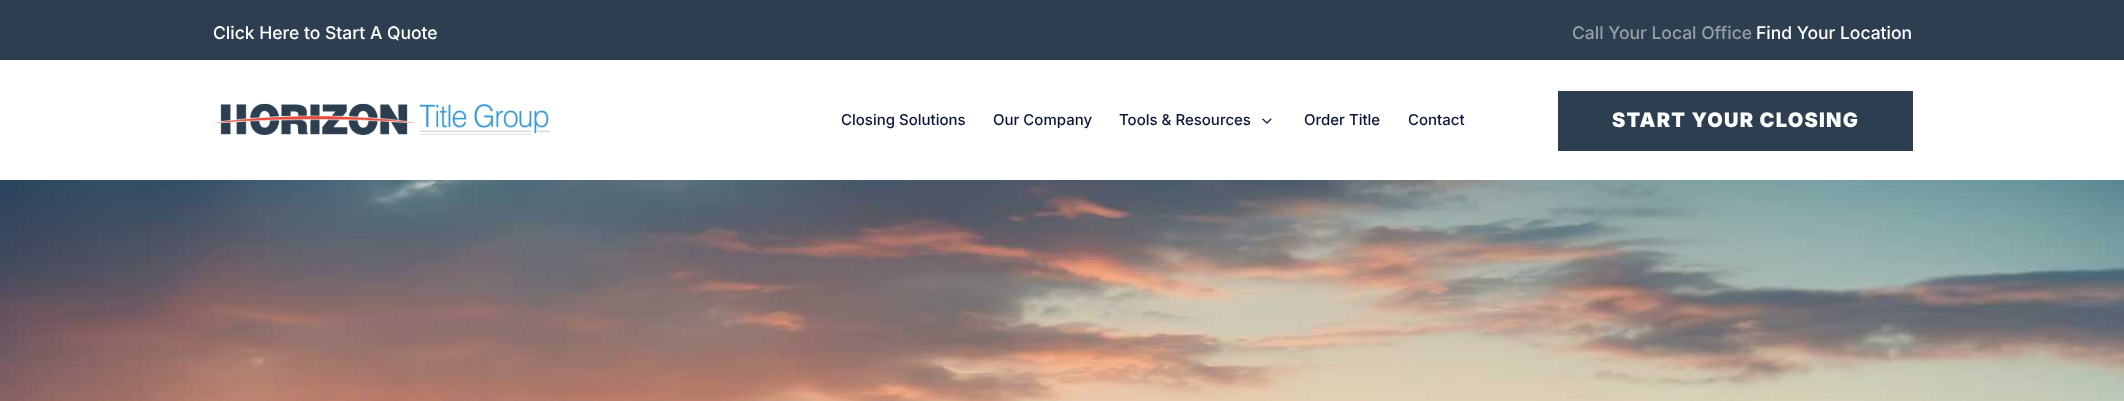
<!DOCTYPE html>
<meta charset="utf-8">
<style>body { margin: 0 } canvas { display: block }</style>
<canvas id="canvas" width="2124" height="401"></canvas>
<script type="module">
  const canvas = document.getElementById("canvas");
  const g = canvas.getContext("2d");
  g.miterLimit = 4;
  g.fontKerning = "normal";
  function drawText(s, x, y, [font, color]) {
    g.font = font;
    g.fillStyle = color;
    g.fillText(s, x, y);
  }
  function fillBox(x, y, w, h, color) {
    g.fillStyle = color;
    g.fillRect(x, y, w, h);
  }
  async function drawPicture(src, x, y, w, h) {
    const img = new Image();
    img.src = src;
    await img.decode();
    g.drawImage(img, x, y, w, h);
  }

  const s1 = ["500 17.5px Inter", "#FFFFFF"];
  const s2 = ["500 17.5px Inter", "#969FA8"];
  const s3 = ["500 15px Inter", "#0B1738"];
  const s4 = ["900 20px Inter", "#FFFFFF"];

  fillBox(0, 0, 2124, 401, "#FFFFFF");
  fillBox(0, 0, 2124, 60, "#2D3E50");
  drawText("Click Here to Start A Quote", 213, 39, s1);
  drawText("Call Your Local Office", 1572, 39, s2);
  drawText("Find Your Location", 1756, 39, s1);
  await drawPicture("pic1.png", 213, 103, 337, 32);
  drawText("Closing Solutions", 841, 125, s3);
  drawText("Our Company", 993, 125, s3);
  drawText("Tools & Resources", 1119, 125, s3);
  await drawPicture("pic2.png", 1262, 118, 10, 6);
  drawText("Order Title", 1304, 125, s3);
  drawText("Contact", 1408, 125, s3);
  fillBox(1558, 91, 355, 60, "#2D3E50");
  g.letterSpacing = "1.25px";
  drawText("START YOUR CLOSING", 1612, 127, s4);
  await drawPicture("pic3.png", 0, 180, 2124, 221);
</script>
